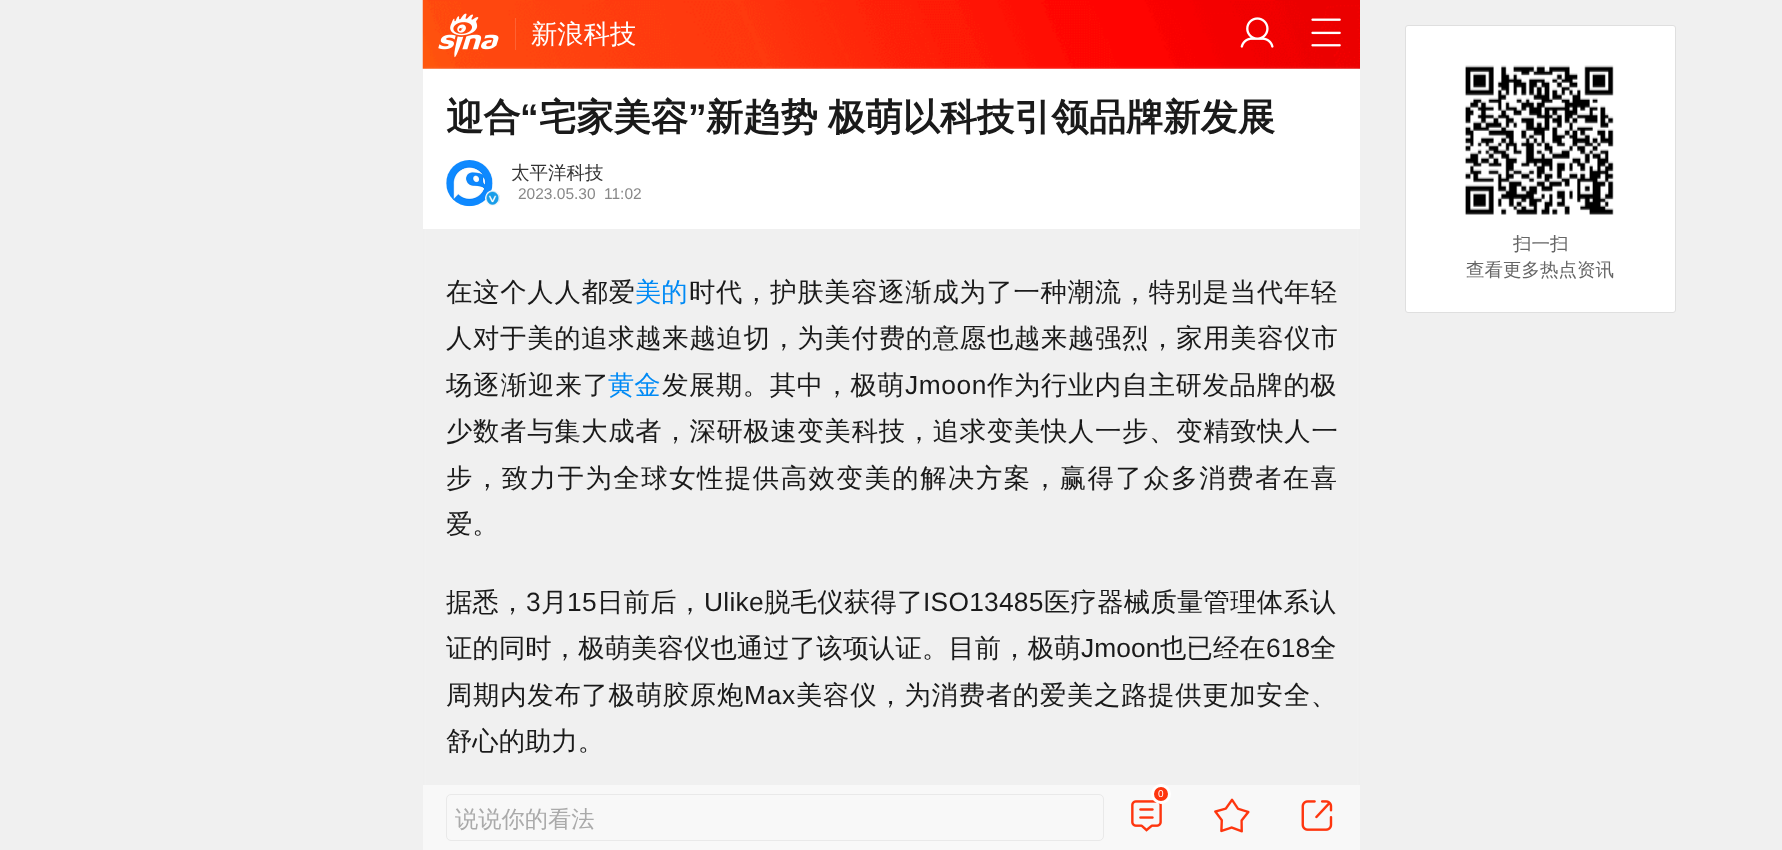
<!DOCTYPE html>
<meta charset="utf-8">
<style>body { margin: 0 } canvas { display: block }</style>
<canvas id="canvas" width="1782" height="850"></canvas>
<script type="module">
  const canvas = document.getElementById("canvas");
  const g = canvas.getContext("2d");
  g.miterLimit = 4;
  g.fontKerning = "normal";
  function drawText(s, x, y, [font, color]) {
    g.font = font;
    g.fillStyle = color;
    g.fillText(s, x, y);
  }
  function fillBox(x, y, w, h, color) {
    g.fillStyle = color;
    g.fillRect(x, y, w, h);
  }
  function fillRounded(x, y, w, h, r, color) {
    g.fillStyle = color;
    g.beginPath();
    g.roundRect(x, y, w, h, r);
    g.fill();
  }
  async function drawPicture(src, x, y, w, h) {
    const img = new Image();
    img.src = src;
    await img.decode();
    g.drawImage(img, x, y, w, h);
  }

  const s1 = ["500 26.35px WenQuanYi Zen Hei", "#FFFFFF"];
  const s2 = ["bold 37.25px WenQuanYi Zen Hei", "#1A1A1A"];
  const s3 = ["bold 37.25px Liberation Sans", "#1A1A1A"];
  const s4 = ["500 18.5px WenQuanYi Zen Hei", "#333333"];
  const s5 = ["15.5px Liberation Sans", "#888888"];
  const s6 = ["500 26.35px WenQuanYi Zen Hei", "#1A1A1A"];
  const s7 = ["500 26.35px WenQuanYi Zen Hei", "#008AF5"];
  const s8 = ["26.35px Liberation Sans", "#1A1A1A"];
  const s9 = ["500 18.5px WenQuanYi Zen Hei", "#666666"];
  const s10 = ["10px Liberation Sans", "#FFFFFF"];
  const s11 = ["500 23.25px WenQuanYi Zen Hei", "#AAAAAA"];

  fillBox(0, 0, 1782, 850, "#F0F0F0");
  await drawPicture("pic1.png", 422, 0, 938, 69);
  await drawPicture("pic2.png", 438, 13, 61, 45);
  fillBox(515, 18, 1, 32, "rgba(255, 255, 255, 0.15)");
  drawText("新浪科技", 531, 43, s1);
  await drawPicture("pic3.png", 1240, 17, 34, 31);
  await drawPicture("pic4.png", 1311, 18, 30, 29);
  g.save();
  g.beginPath();
  g.rect(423, 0, 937, 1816);
  g.clip();
  g.fillStyle = "#F0F0F0";
  g.filter = "blur(3px)";
  g.beginPath();
  g.rect(423, 73, 937, 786);
  g.fill();
  g.filter = "none";
  g.restore();
  fillBox(423, 69, 937, 160, "#FFFFFF");
  drawText("迎合", 446, 130, s2);
  drawText("“", 520, 130, s3);
  drawText("宅家美容", 539, 130, s2);
  drawText("”", 688, 130, s3);
  drawText("新趋势", 706, 130, s2);
  drawText("极萌以科技引领品牌新发展", 828, 130, s2);
  fillRounded(446, 160, 47, 46, 23, "#F2F2F2");
  await drawPicture("pic5.png", 446, 160, 47, 47);
  await drawPicture("pic6.png", 485, 190, 15, 16);
  drawText("太平洋科技", 511, 179, s4);
  drawText("2023.05.30", 518, 199, s5);
  drawText("11:02", 604, 199, s5);
  g.letterSpacing = "0.75px";
  drawText("在这个人人都爱", 446, 301, s6);
  g.letterSpacing = "0px";
  drawText("美的", 635, 301, s7);
  g.letterSpacing = "0.7px";
  drawText("时代，护肤美容逐渐成为了一种潮流，特别是当代年轻", 689, 301, s6);
  drawText("人对于美的追求越来越迫切，为美付费的意愿也越来越强烈，家用美容仪市", 446, 347, s6);
  g.letterSpacing = "1px";
  drawText("场逐渐迎来了", 446, 394, s6);
  g.letterSpacing = "0px";
  drawText("黄金", 608, 394, s7);
  g.letterSpacing = "0.6px";
  drawText("发展期。其中，极萌", 662, 394, s6);
  drawText("Jmoon", 905, 394, s8);
  drawText("作为行业内自主研发品牌的极", 987, 394, s6);
  g.letterSpacing = "0.7px";
  drawText("少数者与集大成者，深研极速变美科技，追求变美快人一步、变精致快人一", 446, 440, s6);
  g.letterSpacing = "1.55px";
  drawText("步，致力于为全球女性提供高效变美的解决方案，赢得了众多消费者在喜", 446, 487, s6);
  g.letterSpacing = "0px";
  drawText("爱。", 446, 533, s6);
  g.letterSpacing = "0.25px";
  drawText("据悉，", 446, 611, s6);
  drawText("3", 526, 611, s8);
  drawText("月", 541, 611, s6);
  drawText("15", 567, 611, s8);
  drawText("日前后，", 597, 611, s6);
  drawText("Ulike", 704, 611, s8);
  drawText("脱毛仪获得了", 764, 611, s6);
  drawText("ISO13485", 923, 611, s8);
  drawText("医疗器械质量管理体系认", 1044, 611, s6);
  g.letterSpacing = "0.1px";
  drawText("证的同时，极萌美容仪也通过了该项认证。目前，极萌", 446, 657, s6);
  drawText("Jmoon", 1081, 657, s8);
  drawText("也已经在", 1160, 657, s6);
  drawText("618", 1266, 657, s8);
  drawText("全", 1310, 657, s6);
  g.letterSpacing = "0.75px";
  drawText("周期内发布了极萌胶原炮", 446, 704, s6);
  drawText("Max", 744, 704, s8);
  drawText("美容仪，为消费者的爱美之路提供更加安全、", 796, 704, s6);
  g.letterSpacing = "0px";
  drawText("舒心的助力。", 446, 750, s6);
  g.fillStyle = "#FFFFFF";
  g.beginPath();
  g.roundRect(1405.5, 25.5, 270, 287, 2.5);
  g.fill();
  g.strokeStyle = "#DFDFDF";
  g.stroke();
  await drawPicture("pic7.png", 1465, 65, 149, 150);
  drawText("扫一扫", 1513, 250, s9);
  drawText("查看更多热点资讯", 1466, 276, s9);
  fillBox(423, 785, 937, 65, "#F8F8F8");
  await drawPicture("pic8.png", 1131, 800, 31, 32);
  g.fillStyle = "#FE350E";
  g.beginPath();
  g.arc(1161, 794, 8.5, 0, Math.PI * 2);
  g.fill();
  g.strokeStyle = "#FFFFFF";
  g.lineWidth = 3;
  g.stroke();
  drawText("0", 1158, 797, s10);
  await drawPicture("pic9.png", 1214, 798, 36, 35);
  await drawPicture("pic10.png", 1301, 800, 32, 31);
  g.beginPath();
  g.roundRect(446.5, 794.5, 657, 46, 4.5);
  g.strokeStyle = "#E9E9E9";
  g.lineWidth = 1;
  g.stroke();
  drawText("说说你的看法", 455, 827, s11);
</script>
